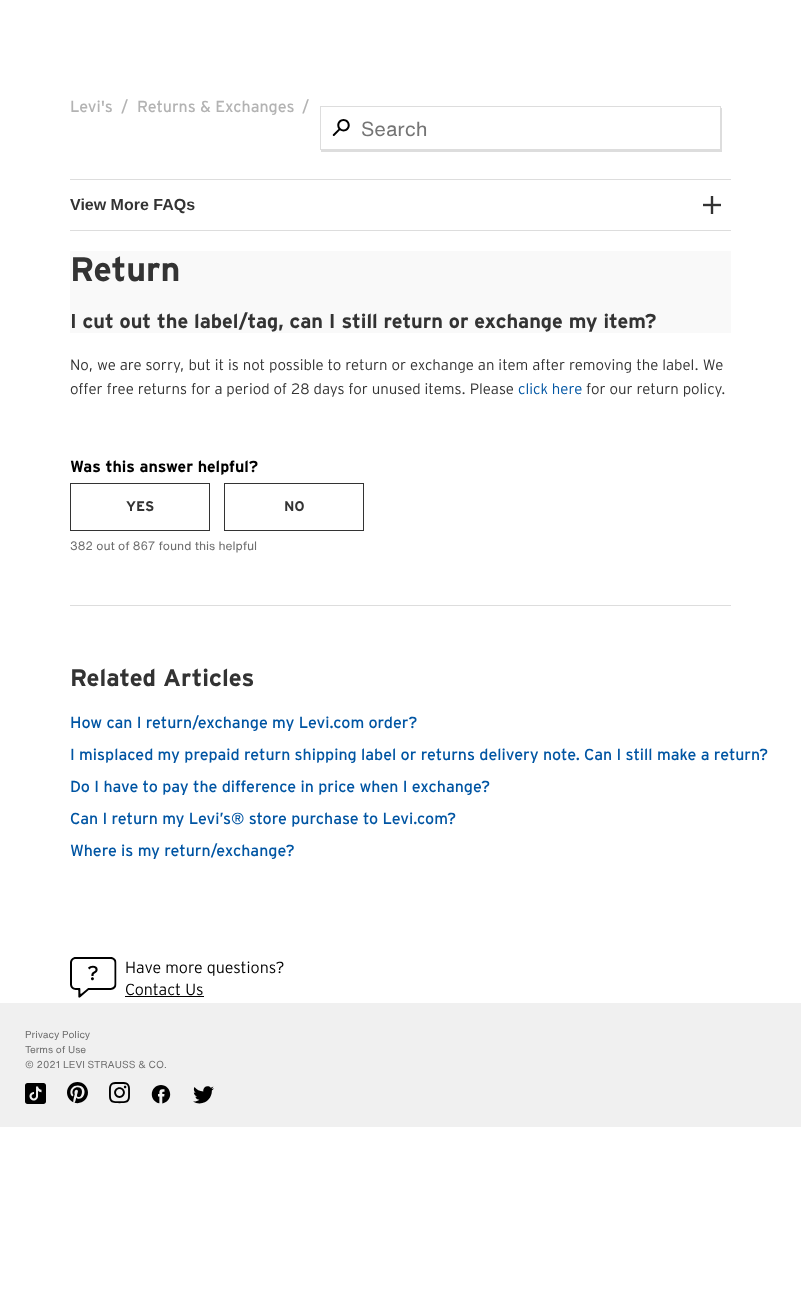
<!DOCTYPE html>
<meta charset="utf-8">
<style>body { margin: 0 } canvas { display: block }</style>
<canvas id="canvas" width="801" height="1308"></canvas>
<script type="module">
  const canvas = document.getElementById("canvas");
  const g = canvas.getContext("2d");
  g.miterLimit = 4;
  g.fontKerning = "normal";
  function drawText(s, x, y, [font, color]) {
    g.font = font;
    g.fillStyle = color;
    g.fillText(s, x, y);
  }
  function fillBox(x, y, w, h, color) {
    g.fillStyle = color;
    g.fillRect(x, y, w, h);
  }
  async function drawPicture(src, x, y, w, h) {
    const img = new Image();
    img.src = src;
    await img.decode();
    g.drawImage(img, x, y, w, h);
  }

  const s1 = ["16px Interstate", "#B3B3B3"];
  const s2 = ["20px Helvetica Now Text", "#757575"];
  const s3 = ["bold 16px Liberation Sans", "#333333"];
  const s4 = ["bold 34px Interstate", "#333333"];
  const s5 = ["bold 20px Interstate", "#333333"];
  const s6 = ["300 15px Interstate", "#333333"];
  const s7 = ["300 15px Interstate", "#0055A3"];
  const s8 = ["bold 16px Interstate", "#000000"];
  const s9 = ["bold 14px Interstate", "#333333"];
  const s10 = ["12px Helvetica Now Text", "#6E6E6E"];
  const s11 = ["bold 24px Interstate", "#333333"];
  const s12 = ["16px Interstate", "#0055A3"];
  const s13 = ["300 16px Interstate", "#000000"];
  const s14 = ["10px Helvetica Now Text", "#6E6E6E"];

  fillBox(0, 0, 801, 1308, "#FFFFFF");
  drawText("Levi's", 70, 112, s1);
  drawText("/", 121, 112, s1);
  drawText("Returns & Exchanges", 137, 112, s1);
  drawText("/", 302, 112, s1);
  g.fillStyle = "#DDDDDD";
  g.beginPath();
  g.moveTo(321, 150);
  g.lineTo(321, 152);
  g.lineTo(722, 152);
  g.lineTo(722, 108);
  g.lineTo(721, 108);
  g.lineTo(721, 150);
  g.closePath();
  g.fill();
  g.strokeStyle = "#DDDDDD";
  g.strokeRect(320.5, 106.5, 400, 43);
  await drawPicture("pic1.png", 332, 119, 18, 17);
  drawText("Search", 361, 136, s2);
  fillBox(70, 179, 661, 1, "#DDDDDD");
  fillBox(70, 230, 661, 1, "#DDDDDD");
  drawText("View More FAQs", 70, 210, s3);
  await drawPicture("pic2.png", 703, 196, 18, 18);
  fillBox(70, 251, 661, 82, "#F9F9F9");
  drawText("Return", 70, 281, s4);
  drawText("I cut out the label/tag, can I still return or exchange my item?", 70, 328, s5);
  drawText("No, we are sorry, but it is not possible to return or exchange an item after removing the label. We", 70, 370, s6);
  drawText("offer free returns for a period of 28 days for unused items. Please", 70, 394, s6);
  drawText("click here", 518, 394, s7);
  drawText("for our return policy.", 586, 394, s6);
  drawText("Was this answer helpful?", 70, 472, s8);
  g.strokeStyle = "#333333";
  g.strokeRect(70.5, 483.5, 139, 47);
  drawText("YES", 126, 511, s9);
  g.strokeRect(224.5, 483.5, 139, 47);
  await drawPicture("pic3.png", 285, 501, 19, 11);
  drawText("382 out of 867 found this helpful", 70, 550, s10);
  fillBox(70, 605, 661, 1, "#DDDDDD");
  drawText("Related Articles", 70, 686, s11);
  drawText("How can I return/exchange my Levi.com order?", 70, 728, s12);
  drawText("I misplaced my prepaid return shipping label or returns delivery note. Can I still make a return?", 70, 760, s12);
  drawText("Do I have to pay the difference in price when I exchange?", 70, 792, s12);
  drawText("Can I return my Levi’s® store purchase to Levi.com?", 70, 824, s12);
  drawText("Where is my return/exchange?", 70, 856, s12);
  await drawPicture("pic4.png", 70, 957, 47, 41);
  drawText("Have more questions?", 125, 973, s13);
  drawText("Contact Us", 125, 995, s13);
  fillBox(125, 996, 79, 1, "#000000");
  fillBox(0, 1003, 801, 124, "#F0F0F0");
  drawText("Privacy Policy", 25, 1038, s14);
  drawText("Terms of Use", 25, 1053, s14);
  drawText("© 2021 LEVI STRAUSS & CO.", 25, 1068, s14);
  await drawPicture("pic5.png", 25, 1083, 21, 21);
  await drawPicture("pic6.png", 67, 1082, 21, 22);
  await drawPicture("pic7.png", 109, 1082, 21, 22);
  await drawPicture("pic8.png", 151, 1085, 20, 19);
  await drawPicture("pic9.png", 193, 1086, 21, 18);
</script>
